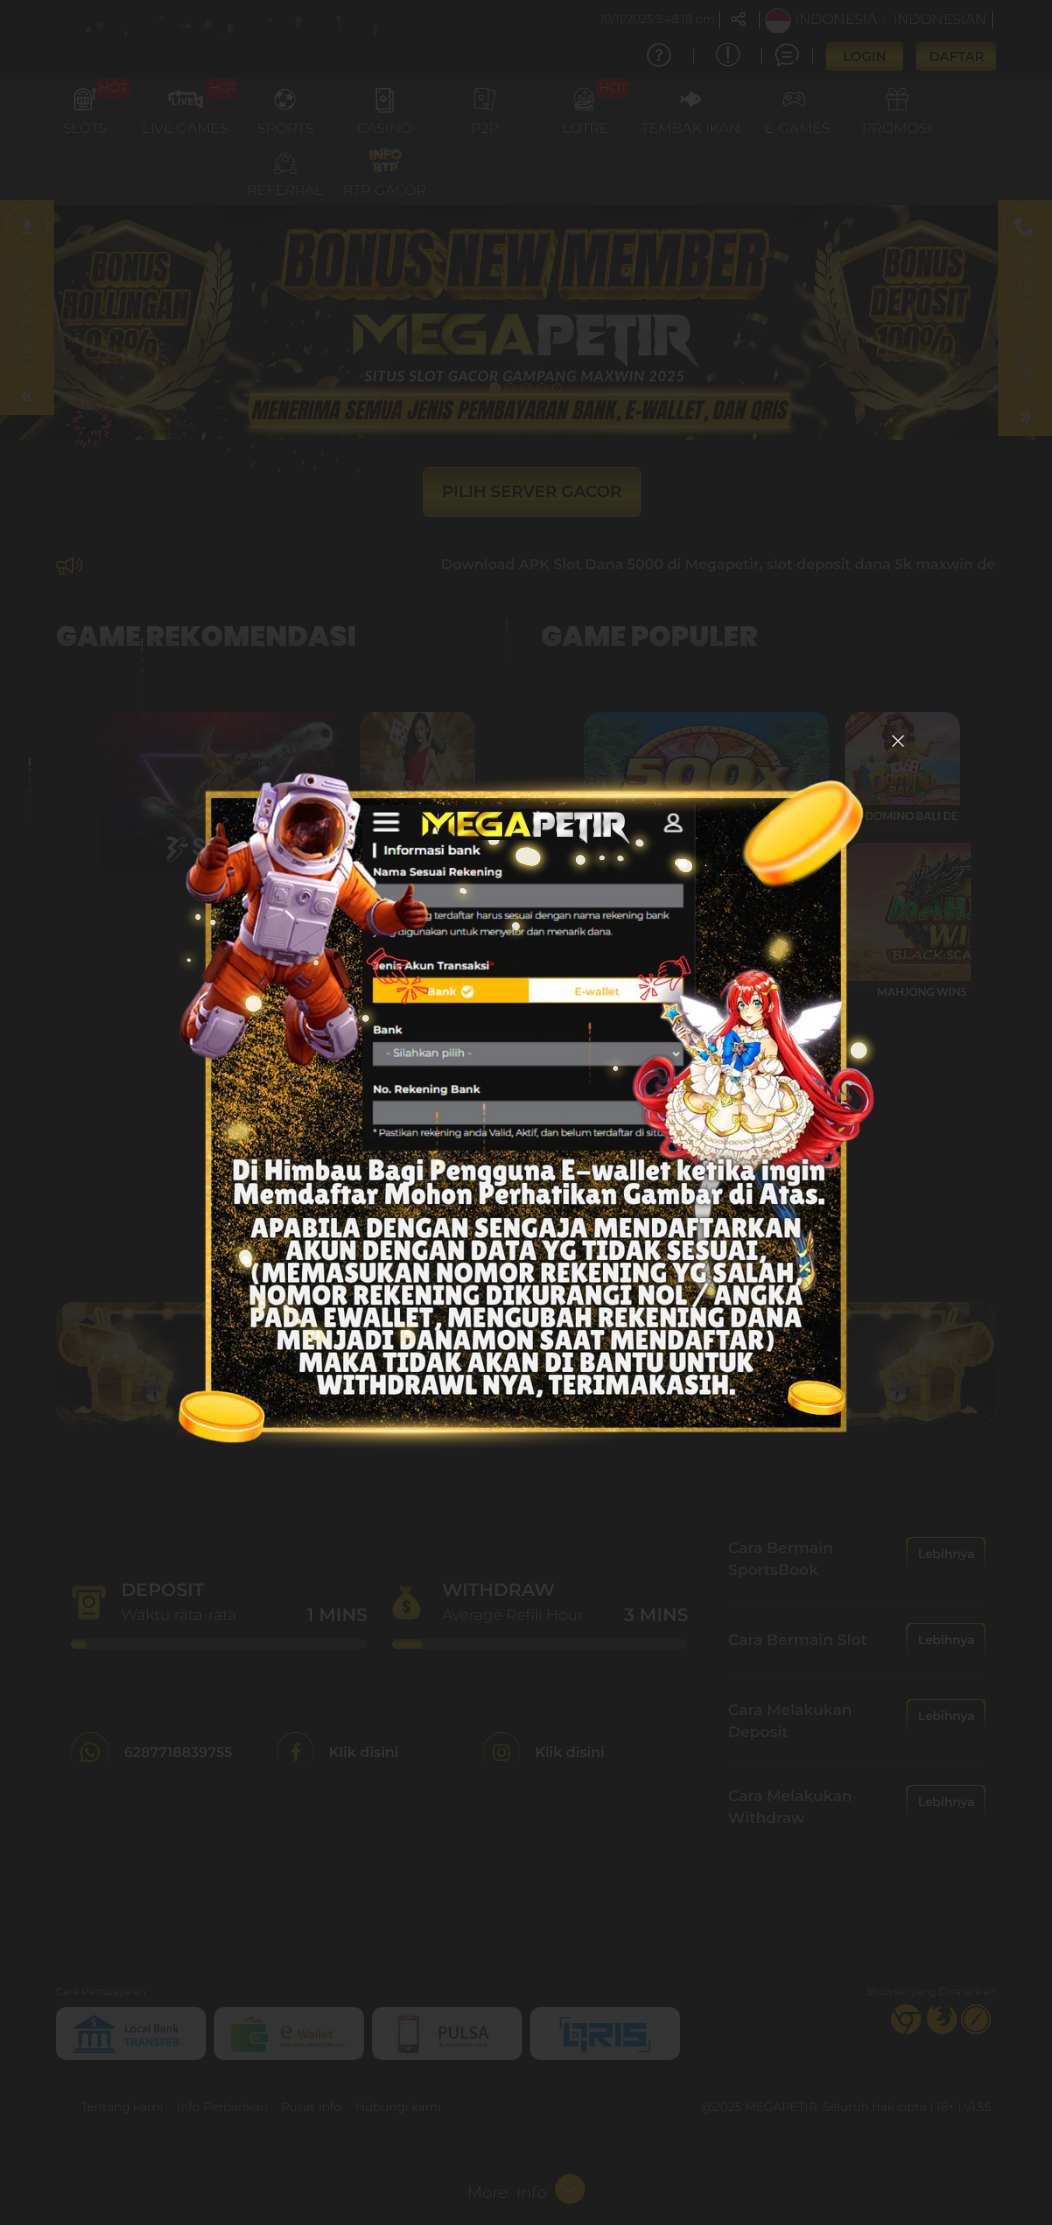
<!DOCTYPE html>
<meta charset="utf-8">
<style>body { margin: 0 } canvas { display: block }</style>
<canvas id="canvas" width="1052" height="2225"></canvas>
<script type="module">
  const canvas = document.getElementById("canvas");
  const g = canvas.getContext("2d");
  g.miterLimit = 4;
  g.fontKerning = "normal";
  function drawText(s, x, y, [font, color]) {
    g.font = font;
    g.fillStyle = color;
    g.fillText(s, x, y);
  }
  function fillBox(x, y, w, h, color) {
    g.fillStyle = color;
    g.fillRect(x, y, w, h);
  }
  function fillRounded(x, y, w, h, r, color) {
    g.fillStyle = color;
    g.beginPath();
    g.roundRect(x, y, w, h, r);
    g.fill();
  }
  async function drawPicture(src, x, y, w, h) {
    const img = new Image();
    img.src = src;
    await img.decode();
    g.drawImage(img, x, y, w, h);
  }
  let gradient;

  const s1 = ["300 11.25px Montserrat", "#343434"];
  const s2 = ["300 14px Montserrat", "#343434"];
  const s3 = ["600 13px Montserrat", "#1B1B1B"];
  const s4 = ["300 13px Montserrat", "#343434"];
  const s5 = ["600 16px Montserrat", "#1B1B1B"];
  const s6 = ["600 14px Montserrat", "#2E2E2E"];
  const s7 = ["bold 11.25px Lato", "#343434"];
  const s8 = ["600 18px Montserrat", "#343434"];
  const s9 = ["300 15px Montserrat", "#343434"];
  const s10 = ["600 14px Montserrat", "#343434"];
  const s11 = ["600 15px Montserrat", "#2E2E2E"];
  const s12 = ["600 12px Montserrat", "#343434"];
  const s13 = ["300 10.25px Montserrat", "#343434"];
  const s14 = ["300 12px Montserrat", "#343434"];
  const s15 = ["300 16px Montserrat", "#343434"];

  fillBox(0, 0, 1052, 2225, "#1D1D1D");
  await drawPicture("pic1.png", 85, 14, 293, 53);
  drawText("10/11/2025 3:48:18 pm", 600, 23, s1);
  fillBox(719, 11, 1, 17, "#343434");
  await drawPicture("pic2.png", 731, 11, 15, 16);
  fillBox(759, 11, 1, 17, "#343434");
  await drawPicture("pic3.png", 765, 8, 26, 25);
  drawText("INDONESIA", 795, 24, s2);
  g.fillStyle = "#202020";
  g.beginPath();
  g.arc(884.5, 18.5, 2.5, 0, Math.PI * 2);
  g.fill();
  drawText("INDONESIAN", 893, 24, s2);
  fillBox(992, 11, 1, 17, "#343434");
  await drawPicture("pic4.png", 647, 43, 24, 24);
  fillBox(693, 49, 1, 15, "#343434");
  await drawPicture("pic5.png", 716, 42, 24, 25);
  fillBox(761, 49, 1, 15, "#343434");
  await drawPicture("pic6.png", 775, 43, 24, 24);
  fillBox(812, 49, 1, 15, "#343434");
  g.save();
  g.beginPath();
  g.roundRect(826, 42, 77, 29, 4);
  g.clip();
  gradient = g.createLinearGradient(865, 43, 865, 16);
  gradient.addColorStop(0, "#2D291C");
  gradient.addColorStop(0.44, "#33321B");
  gradient.addColorStop(1, "#2A251C");
  g.fillStyle = gradient;
  g.fillRect(826, 42, 77, 1);
  gradient = g.createLinearGradient(865, 70, 865, 43);
  gradient.addColorStop(0, "#2D291C");
  gradient.addColorStop(0.44, "#33321B");
  gradient.addColorStop(1, "#2A251C");
  g.fillStyle = gradient;
  g.fillRect(826, 43, 77, 27);
  gradient = g.createLinearGradient(865, 97, 865, 70);
  gradient.addColorStop(0, "#2D291C");
  gradient.addColorStop(0.44, "#33321B");
  gradient.addColorStop(1, "#2A251C");
  g.fillStyle = gradient;
  g.fillRect(826, 70, 77, 1);
  g.restore();
  drawText("LOGIN", 843, 61, s3);
  g.save();
  g.beginPath();
  g.roundRect(916, 42, 80, 29, 4);
  g.clip();
  gradient = g.createLinearGradient(956, 43, 956, 16);
  gradient.addColorStop(0, "#2D291C");
  gradient.addColorStop(0.44, "#33321B");
  gradient.addColorStop(1, "#2A251C");
  g.fillStyle = gradient;
  g.fillRect(916, 42, 80, 1);
  gradient = g.createLinearGradient(956, 70, 956, 43);
  gradient.addColorStop(0, "#2D291C");
  gradient.addColorStop(0.44, "#33321B");
  gradient.addColorStop(1, "#2A251C");
  g.fillStyle = gradient;
  g.fillRect(916, 43, 80, 27);
  gradient = g.createLinearGradient(956, 97, 956, 70);
  gradient.addColorStop(0, "#2D291C");
  gradient.addColorStop(0.44, "#33321B");
  gradient.addColorStop(1, "#2A251C");
  g.fillStyle = gradient;
  g.fillRect(916, 70, 80, 1);
  g.restore();
  drawText("DAFTAR", 929, 61, s3);
  fillBox(0, 79, 1052, 126, "#202020");
  await drawPicture("pic7.png", 74, 88, 22, 23);
  fillRounded(96, 79, 34, 19, 5, "#341B1B");
  drawText("HOT", 99, 92, s4);
  drawText("SLOTS", 63, 133, s2);
  g.save();
  g.beginPath();
  g.rect(135, 79, 100, 64);
  g.clip();
  fillRounded(206, 79, 33, 19, 5, "#341B1B");
  g.restore();
  drawText("HOT", 209, 92, s4);
  await drawPicture("pic8.png", 167, 89, 37, 20);
  drawText("LIVE GAMES", 142, 133, s2);
  await drawPicture("pic9.png", 274, 88, 22, 22);
  drawText("SPORTS", 257, 133, s2);
  await drawPicture("pic10.png", 375, 88, 19, 25);
  drawText("CASINO", 357, 133, s2);
  await drawPicture("pic11.png", 474, 88, 22, 23);
  drawText("P2P", 471, 133, s2);
  await drawPicture("pic12.png", 574, 88, 21, 23);
  fillRounded(596, 79, 34, 19, 5, "#341B1B");
  drawText("HOT", 599, 92, s4);
  drawText("LOTRE", 562, 133, s2);
  await drawPicture("pic13.png", 680, 91, 22, 16);
  drawText("TEMBAK IKAN", 641, 133, s2);
  await drawPicture("pic14.png", 783, 91, 23, 16);
  drawText("E-GAMES", 764, 133, s2);
  await drawPicture("pic15.png", 886, 88, 23, 23);
  drawText("PROMOSI", 862, 133, s2);
  await drawPicture("pic16.png", 274, 151, 23, 23);
  drawText("REFERRAL", 247, 195, s2);
  await drawPicture("pic17.png", 368, 146, 35, 31);
  drawText("RTP GACOR", 343, 195, s2);
  await drawPicture("pic23.png", 0, 205, 1052, 235);
  gradient = g.createLinearGradient(0, 323, 158, 323);
  gradient.addColorStop(0, "rgba(27, 27, 27, 0.25)");
  gradient.addColorStop(1, "rgba(27, 27, 27, 0)");
  g.fillStyle = gradient;
  g.fillRect(0, 207, 102, 233);
  fillBox(0, 200, 54, 215, "#342E1B");
  g.beginPath();
  g.moveTo(27, 205.5);
  g.bezierCurveTo(55, 205.5, 55, 246.5, 27, 246.5);
  g.bezierCurveTo(-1.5, 246.5, -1.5, 205.5, 27, 205.5);
  g.closePath();
  g.strokeStyle = "#343434";
  g.stroke();
  await drawPicture("pic18.png", 21, 219, 13, 16);
  g.font = "300 17.5px Montserrat";
  g.fillStyle = "#343434";
  g.save();
  g.translate(21, 256);
  g.rotate(90 * Math.PI / 180);
  g.fillText("DOWNLOAD", 0, 0);
  g.restore();
  await drawPicture("pic19.png", 21, 391, 12, 10);
  g.fillStyle = "#342E21";
  g.beginPath();
  g.arc(495, 388, 5.5, 0, Math.PI * 2);
  g.fill();
  g.strokeStyle = "#342E1B";
  g.stroke();
  g.beginPath();
  g.arc(510, 388, 4.5, 0, Math.PI * 2);
  g.stroke();
  g.fillStyle = "#1C1D20";
  g.beginPath();
  g.moveTo(423, 511);
  g.lineTo(423, 515);
  g.bezierCurveTo(423, 518, 426, 521, 429, 521);
  g.lineTo(635, 521);
  g.bezierCurveTo(638, 521, 641, 518, 641, 515);
  g.lineTo(641, 511);
  g.bezierCurveTo(641, 514, 638, 517, 635, 517);
  g.lineTo(429, 517);
  g.bezierCurveTo(426, 517, 423, 514, 423, 511);
  g.closePath();
  g.fill();
  g.save();
  g.beginPath();
  g.roundRect(423, 467, 218, 50, 6);
  g.clip();
  gradient = g.createLinearGradient(532, 516, 532, 468);
  gradient.addColorStop(0, "#2D291C");
  gradient.addColorStop(0.44, "#33321B");
  gradient.addColorStop(1, "#2A251C");
  g.fillStyle = gradient;
  g.fillRect(423, 468, 218, 48);
  g.restore();
  g.beginPath();
  g.roundRect(423.5, 467.5, 217, 49, 5.5);
  g.strokeStyle = "#332E23";
  g.stroke();
  drawText("PILIH SERVER GACOR", 442, 497, s5);
  await drawPicture("pic24.png", 56, 556, 27, 19);
  drawText("Download APK Slot Dana 5000 di Megapetir, slot deposit dana 5k maxwin de", 441, 569, s6);
  g.font = "900 28px Poppins";
  gradient = g.createLinearGradient(284, 620, 284, 653);
  gradient.addColorStop(0.18, "#343434");
  gradient.addColorStop(0.69, "#2E2E2F");
  g.fillStyle = gradient;
  g.fillText("GAME REKOMENDASI", 56, 646);
  await drawPicture("pic25.png", 99, 712, 245, 160);
  await drawPicture("pic26.png", 360, 712, 115, 88);
  await drawPicture("pic20.png", 28, 255, 480, 600);
  gradient = g.createLinearGradient(894, 323, 1052, 323);
  gradient.addColorStop(0, "rgba(27, 27, 27, 0)");
  gradient.addColorStop(1, "rgba(27, 27, 27, 0.25)");
  g.fillStyle = gradient;
  g.fillRect(950, 207, 102, 233);
  fillBox(998, 200, 54, 236, "#342E1B");
  g.beginPath();
  g.moveTo(1025, 205.5);
  g.bezierCurveTo(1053, 205.5, 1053, 246.5, 1025, 246.5);
  g.bezierCurveTo(996.5, 246.5, 996.5, 205.5, 1025, 205.5);
  g.closePath();
  g.strokeStyle = "#343434";
  g.stroke();
  await drawPicture("pic21.png", 1014, 217, 20, 21);
  g.font = "300 17.5px Montserrat";
  g.fillStyle = "#343434";
  g.save();
  g.translate(1019, 251);
  g.rotate(90 * Math.PI / 180);
  g.fillText("HUBUNGI KAMI", 0, 0);
  g.restore();
  await drawPicture("pic22.png", 1019, 412, 12, 10);
  g.beginPath();
  g.arc(526, 388, 4.5, 0, Math.PI * 2);
  g.strokeStyle = "#342E1B";
  g.stroke();
  g.beginPath();
  g.arc(542, 388, 4.5, 0, Math.PI * 2);
  g.stroke();
  g.beginPath();
  g.arc(557, 388, 4.5, 0, Math.PI * 2);
  g.stroke();
  g.font = "900 28px Poppins";
  gradient = g.createLinearGradient(769, 620, 769, 653);
  gradient.addColorStop(0.18, "#343434");
  gradient.addColorStop(0.69, "#2E2E2F");
  g.fillStyle = gradient;
  g.fillText("GAME POPULER", 541, 646);
  await drawPicture("pic27.png", 584, 712, 245, 88);
  await drawPicture("pic28.png", 845, 712, 115, 115);
  g.fillStyle = "rgba(27, 27, 27, 0.8)";
  g.beginPath();
  g.roundRect(845, 805, 115, 22, [0, 0, 16, 16]);
  g.fill();
  drawText("DOMINO BALI DE", 865, 820, s7);
  await drawPicture("pic29.png", 846, 843, 125, 160);
  g.fillStyle = "rgba(27, 27, 27, 0.8)";
  g.beginPath();
  g.roundRect(845, 981, 126, 22, [0, 0, 0, 16]);
  g.fill();
  drawText("MAHJONG WINS", 877, 996, s7);
  await drawPicture("pic30.png", 56, 1302, 940, 123);
  await drawPicture("pic31.png", 71, 1585, 35, 35);
  drawText("DEPOSIT", 121, 1596, s8);
  drawText("Waktu rata-rata", 121, 1620, s9);
  drawText("1 MINS", 307, 1621, s8);
  fillRounded(71, 1639, 296, 10, 5, "#222221");
  gradient = g.createLinearGradient(79, 1649, 79, 1639);
  gradient.addColorStop(0, "#2D291C");
  gradient.addColorStop(0.44, "#33321B");
  gradient.addColorStop(1, "#2A251C");
  g.fillStyle = gradient;
  g.beginPath();
  g.roundRect(71, 1639, 15, 10, 5);
  g.fill();
  await drawPicture("pic32.png", 392, 1585, 29, 35);
  drawText("WITHDRAW", 442, 1596, s8);
  drawText("Average Refill Hour", 442, 1620, s9);
  drawText("3 MINS", 624, 1621, s8);
  fillRounded(392, 1639, 296, 10, 5, "#222221");
  gradient = g.createLinearGradient(407, 1649, 407, 1639);
  gradient.addColorStop(0, "#2D291C");
  gradient.addColorStop(0.44, "#33321B");
  gradient.addColorStop(1, "#2A251C");
  g.fillStyle = gradient;
  g.beginPath();
  g.roundRect(392, 1639, 30, 10, 5);
  g.fill();
  gradient = g.createLinearGradient(90, 1732, 90, 1772);
  gradient.addColorStop(0, "#342F1C");
  gradient.addColorStop(1, "#1D1D1D");
  g.fillStyle = gradient;
  g.beginPath();
  g.roundRect(71, 1732, 38, 40, 19);
  g.fill();
  fillRounded(72, 1733, 36, 38, 18, "#1D1D1D");
  await drawPicture("pic33.png", 80, 1742, 20, 21);
  drawText("6287718839755", 124, 1757, s10);
  gradient = g.createLinearGradient(296, 1732, 296, 1772);
  gradient.addColorStop(0, "#342F1C");
  gradient.addColorStop(1, "#1D1D1D");
  g.fillStyle = gradient;
  g.beginPath();
  g.roundRect(277, 1732, 37, 40, 18.5);
  g.fill();
  fillRounded(278, 1733, 35, 38, 17.5, "#1D1D1D");
  await drawPicture("pic34.png", 291, 1742, 10, 19);
  drawText("Klik disini", 329, 1757, s10);
  gradient = g.createLinearGradient(502, 1732, 502, 1772);
  gradient.addColorStop(0, "#342F1C");
  gradient.addColorStop(1, "#1D1D1D");
  g.fillStyle = gradient;
  g.beginPath();
  g.roundRect(483, 1732, 37, 40, 18.5);
  g.fill();
  fillRounded(484, 1733, 35, 38, 17.5, "#1D1D1D");
  await drawPicture("pic35.png", 493, 1743, 18, 18);
  drawText("Klik disini", 535, 1757, s10);
  fillBox(728, 1602, 258, 1, "#1F2123");
  drawText("Cara Bermain", 728, 1553, s11);
  drawText("SportsBook", 728, 1575, s11);
  gradient = g.createLinearGradient(946, 1537, 946, 1572);
  gradient.addColorStop(0, "#342F1C");
  gradient.addColorStop(1, "#1D1D1D");
  g.fillStyle = gradient;
  g.beginPath();
  g.roundRect(906, 1537, 80, 35, 5);
  g.fill();
  fillRounded(908, 1538, 76, 32, 5, "#1D1D1D");
  drawText("Lebihnya", 918, 1558, s12);
  fillBox(728, 1678, 258, 1, "#1F2123");
  drawText("Cara Bermain Slot", 728, 1645, s11);
  gradient = g.createLinearGradient(946, 1623, 946, 1658);
  gradient.addColorStop(0, "#342F1C");
  gradient.addColorStop(1, "#1D1D1D");
  g.fillStyle = gradient;
  g.beginPath();
  g.roundRect(906, 1623, 80, 35, 5);
  g.fill();
  fillRounded(908, 1624, 76, 32, 5, "#1D1D1D");
  drawText("Lebihnya", 918, 1644, s12);
  fillBox(728, 1764, 258, 1, "#1F2123");
  drawText("Cara Melakukan", 728, 1715, s11);
  drawText("Deposit", 728, 1737, s11);
  gradient = g.createLinearGradient(946, 1699, 946, 1734);
  gradient.addColorStop(0, "#342F1C");
  gradient.addColorStop(1, "#1D1D1D");
  g.fillStyle = gradient;
  g.beginPath();
  g.roundRect(906, 1699, 80, 35, 5);
  g.fill();
  fillRounded(908, 1700, 76, 32, 5, "#1D1D1D");
  drawText("Lebihnya", 918, 1720, s12);
  drawText("Cara Melakukan", 728, 1801, s11);
  drawText("Withdraw", 728, 1823, s11);
  gradient = g.createLinearGradient(946, 1785, 946, 1820);
  gradient.addColorStop(0, "#342F1C");
  gradient.addColorStop(1, "#1D1D1D");
  g.fillStyle = gradient;
  g.beginPath();
  g.roundRect(906, 1785, 80, 35, 5);
  g.fill();
  fillRounded(908, 1786, 76, 32, 5, "#1D1D1D");
  drawText("Lebihnya", 918, 1806, s12);
  await drawPicture("pic36.png", 892, 735, 12, 12);
  await drawPicture("pic37.png", 176, 772, 700, 677);
  drawText("Cara Pembayaran", 56, 1995, s13);
  await drawPicture("pic38.png", 56, 2007, 150, 53);
  await drawPicture("pic39.png", 214, 2007, 150, 53);
  await drawPicture("pic40.png", 372, 2007, 150, 53);
  await drawPicture("pic41.png", 530, 2007, 150, 53);
  drawText("Browser yang Disarankan", 867, 1995, s13);
  await drawPicture("pic42.png", 891, 2004, 30, 31);
  await drawPicture("pic43.png", 927, 2005, 30, 30);
  await drawPicture("pic44.png", 961, 2004, 30, 31);
  drawText("Tentang kami", 81, 2111, s14);
  drawText("Info Perbankan", 177, 2111, s14);
  drawText("Pusat Info", 281, 2111, s14);
  drawText("Hubungi kami", 355, 2111, s14);
  drawText("@2025 MEGAPETIR. Seluruh hak cipta | 18+ | v1.55", 701, 2111, s14);
  drawText("More  Info", 467, 2198, s15);
  g.fillStyle = "#342E1B";
  g.beginPath();
  g.arc(570, 2189, 15, 0, Math.PI * 2);
  g.fill();
  await drawPicture("pic45.png", 561, 2185, 18, 9);
</script>
